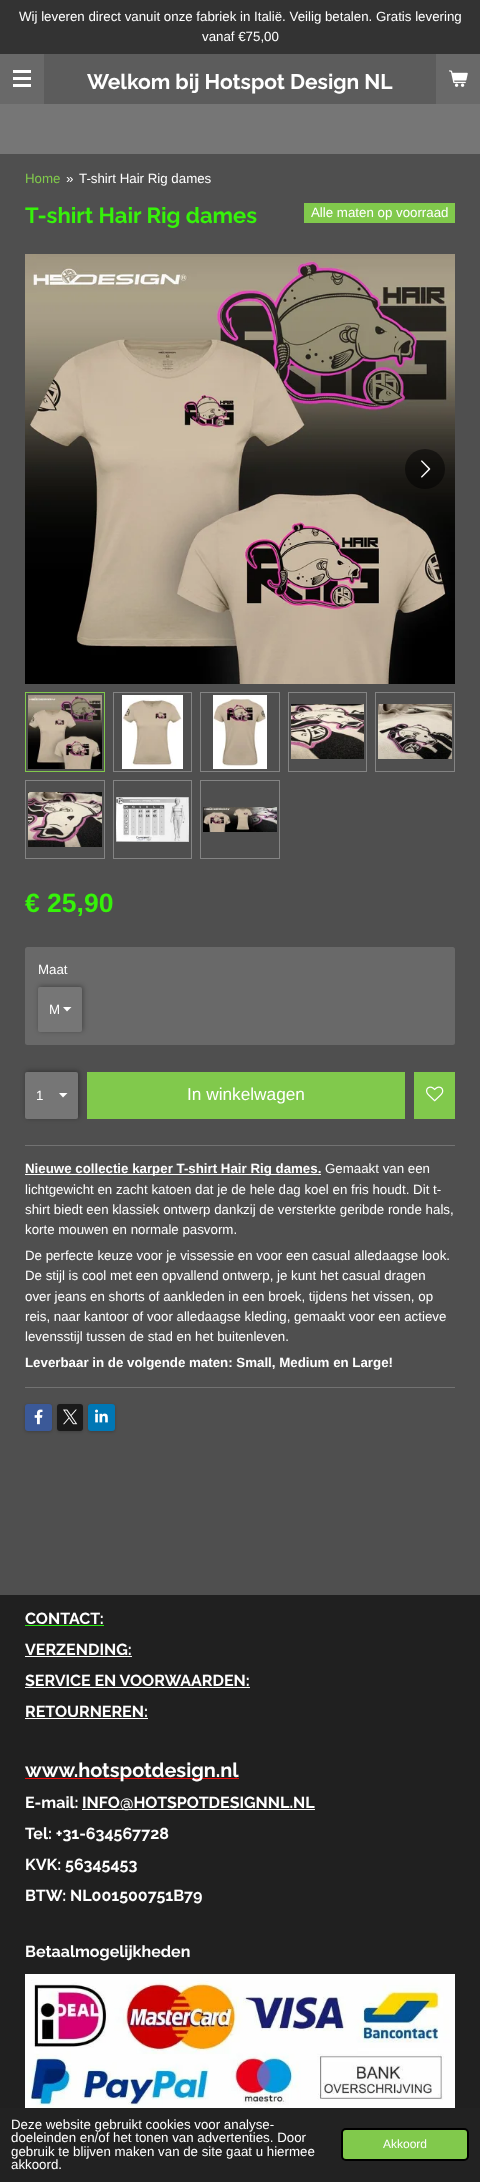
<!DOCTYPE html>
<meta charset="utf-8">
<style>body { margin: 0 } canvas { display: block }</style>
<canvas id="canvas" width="480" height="2182"></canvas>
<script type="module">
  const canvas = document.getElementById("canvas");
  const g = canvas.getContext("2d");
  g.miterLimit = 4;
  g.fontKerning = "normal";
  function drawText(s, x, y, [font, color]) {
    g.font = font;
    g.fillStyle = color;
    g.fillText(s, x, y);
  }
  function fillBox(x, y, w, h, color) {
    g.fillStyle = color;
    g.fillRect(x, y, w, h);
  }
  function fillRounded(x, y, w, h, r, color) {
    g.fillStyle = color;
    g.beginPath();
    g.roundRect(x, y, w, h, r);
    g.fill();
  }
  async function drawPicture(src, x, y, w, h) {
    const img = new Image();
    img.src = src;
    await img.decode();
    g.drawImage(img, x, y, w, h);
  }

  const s1 = ["13.3px Liberation Sans", "#FFFFFF"];
  const s2 = ["bold 21px Raleway", "#FFFFFF"];
  const s3 = ["13.3px Liberation Sans", "#81C94C"];
  const s4 = ["bold 22px Raleway", "#36F20A"];
  const s5 = ["bold 26.5px Liberation Sans", "#36F20A"];
  const s6 = ["17.25px Liberation Sans", "#FFFFFF"];
  const s7 = ["bold 13.3px Liberation Sans", "#FFFFFF"];
  const s8 = ["bold 16px Raleway", "#FFFFFF"];
  const s9 = ["bold 19.9px Raleway", "#FFFFFF"];
  const s10 = ["12px Liberation Sans", "#FFFFFF"];

  fillBox(0, 0, 480, 2182, "#5C5C5C");
  fillBox(0, 0, 480, 54, "#333333");
  drawText("Wij leveren direct vanuit onze fabriek in Italië. Veilig betalen. Gratis levering", 19, 21, s1);
  drawText("vanaf €75,00", 202, 41, s1);
  fillBox(0, 54, 44, 50, "#696969");
  fillBox(13, 77, 18, 3, "#FFFFFF");
  fillBox(13, 70, 18, 3, "#FFFFFF");
  fillBox(13, 84, 18, 3, "#FFFFFF");
  drawText("Welkom bij Hotspot Design NL", 87, 89, s2);
  fillBox(436, 54, 44, 50, "#696969");
  await drawPicture("pic1.png", 449, 70, 19, 17);
  fillBox(0, 104, 480, 50, "#767676");
  fillBox(0, 154, 480, 1441, "#4F4F4F");
  drawText("Home", 25, 183, s3);
  drawText("»", 66, 183, s1);
  drawText("T-shirt Hair Rig dames", 79, 183, s1);
  drawText("T-shirt Hair Rig dames", 25, 223, s4);
  fillBox(304, 203, 151, 20, "#81C94C");
  drawText("Alle maten op voorraad", 311, 217, s1);
  await drawPicture("pic2.png", 25, 254, 430, 430);
  g.fillStyle = "rgba(0, 0, 0, 0.5)";
  g.beginPath();
  g.arc(425, 469, 20, 0, Math.PI * 2);
  g.fill();
  await drawPicture("pic3.png", 421, 460, 10, 18);
  g.strokeStyle = "#81C94C";
  g.strokeRect(25.5, 692.5, 79, 79);
  await drawPicture("pic4.png", 28, 695, 74, 74);
  g.strokeStyle = "#848484";
  g.strokeRect(113.5, 692.5, 78, 79);
  await drawPicture("pic5.png", 122, 695, 61, 74);
  g.strokeRect(200.5, 692.5, 79, 79);
  await drawPicture("pic6.png", 213, 695, 54, 74);
  g.strokeRect(288.5, 692.5, 78, 79);
  await drawPicture("pic7.png", 291, 704, 73, 55);
  g.strokeRect(375.5, 692.5, 79, 79);
  await drawPicture("pic8.png", 378, 704, 74, 55);
  g.strokeRect(25.5, 780.5, 79, 78);
  await drawPicture("pic9.png", 28, 792, 74, 55);
  g.strokeRect(113.5, 780.5, 78, 78);
  await drawPicture("pic10.png", 116, 797, 73, 45);
  g.strokeRect(200.5, 780.5, 79, 78);
  await drawPicture("pic11.png", 203, 807, 74, 25);
  drawText("€ 25,90", 25, 912, s5);
  fillRounded(25, 947, 430, 98, 2.5, "#696969");
  drawText("Maat", 38, 974, s1);
  g.fillStyle = "rgba(0, 0, 0, 0.35)";
  g.filter = "blur(2.5px)";
  g.beginPath();
  g.roundRect(39, 986, 44, 45, 2);
  g.fill();
  g.filter = "none";
  fillRounded(38, 987, 44, 45, 2, "#767676");
  g.fillStyle = "#FFFFFF";
  g.beginPath();
  g.moveTo(67, 1011.5);
  g.lineTo(63, 1007);
  g.lineTo(71.5, 1007);
  g.closePath();
  g.fill();
  drawText("M", 49, 1014, s1);
  g.fillStyle = "rgba(0, 0, 0, 0.35)";
  g.filter = "blur(2.5px)";
  g.beginPath();
  g.roundRect(26, 1071, 53, 47, 2);
  g.fill();
  g.filter = "none";
  fillRounded(25, 1072, 53, 47, 2, "#767676");
  g.fillStyle = "#FFFFFF";
  g.beginPath();
  g.moveTo(63, 1097.5);
  g.lineTo(59, 1093);
  g.lineTo(67.5, 1093);
  g.closePath();
  g.fill();
  drawText("1", 36, 1100, s1);
  fillBox(87, 1072, 318, 47, "#81C94C");
  drawText("In winkelwagen", 187, 1100, s6);
  fillBox(414, 1072, 41, 47, "#81C94C");
  await drawPicture("pic12.png", 426, 1086, 18, 16);
  fillBox(25, 1145, 430, 1, "#727272");
  fillBox(25, 1174, 296, 1, "#FFFFFF");
  drawText("Nieuwe collectie karper T-shirt Hair Rig dames.", 25, 1173, s7);
  drawText("Gemaakt van een", 325, 1173, s1);
  drawText("lichtgewicht en zacht katoen dat je de hele dag koel en fris houdt. Dit t-", 25, 1194, s1);
  drawText("shirt biedt een klassiek ontwerp dankzij de versterkte geribde ronde hals,", 25, 1214, s1);
  drawText("korte mouwen en normale pasvorm.", 25, 1234, s1);
  drawText("De perfecte keuze voor je vissessie en voor een casual alledaagse look.", 25, 1260, s1);
  drawText("De stijl is cool met een opvallend ontwerp, je kunt het casual dragen", 25, 1280, s1);
  drawText("over jeans en shorts of aankleden in een broek, tijdens het vissen, op", 25, 1301, s1);
  drawText("reis, naar kantoor of voor alledaagse kleding, gemaakt voor een actieve", 25, 1321, s1);
  drawText("levensstijl tussen de stad en het buitenleven.", 25, 1341, s1);
  drawText("Leverbaar in de volgende maten: Small, Medium en Large!", 25, 1367, s7);
  fillBox(25, 1387, 430, 1, "#727272");
  g.fillStyle = "rgba(0, 0, 0, 0.2)";
  g.filter = "blur(1.5px)";
  g.beginPath();
  g.roundRect(25, 1405, 27, 27, 3);
  g.fill();
  g.filter = "none";
  fillRounded(25, 1404, 27, 27, 3, "#3B5998");
  await drawPicture("pic13.png", 34, 1409, 9, 16);
  g.fillStyle = "rgba(0, 0, 0, 0.2)";
  g.filter = "blur(1.5px)";
  g.beginPath();
  g.roundRect(57, 1405, 26, 27, 3);
  g.fill();
  g.filter = "none";
  fillRounded(57, 1404, 26, 27, 3, "#1A1A1A");
  await drawPicture("pic14.png", 63, 1409, 15, 16);
  g.fillStyle = "rgba(0, 0, 0, 0.2)";
  g.filter = "blur(1.5px)";
  g.beginPath();
  g.roundRect(88, 1405, 27, 27, 3);
  g.fill();
  g.filter = "none";
  fillRounded(88, 1404, 27, 27, 3, "#0077B5");
  await drawPicture("pic15.png", 95, 1409, 13, 14);
  fillBox(0, 1595, 480, 513, "#202020");
  drawText("CONTACT:", 25, 1624, s8);
  fillBox(25, 1625, 79, 1, "#29EC0E");
  drawText("VERZENDING:", 25, 1655, s8);
  fillBox(25, 1656, 107, 1, "#FFFFFF");
  drawText("SERVICE EN VOORWAARDEN:", 25, 1686, s8);
  fillBox(25, 1687, 225, 1, "#FFFFFF");
  drawText("RETOURNEREN:", 25, 1717, s8);
  fillBox(25, 1718, 123, 1, "#FFFFFF");
  fillBox(25, 1778, 214, 1, "#F60909");
  drawText("www.hotspotdesign.nl", 25, 1777, s9);
  drawText("E-mail:", 25, 1808, s8);
  fillBox(82, 1809, 233, 1, "#FFFFFF");
  drawText("INFO@HOTSPOTDESIGNNL.NL", 82, 1808, s8);
  drawText("Tel: +31-634567728", 25, 1839, s8);
  drawText("KVK: 56345453", 25, 1870, s8);
  drawText("BTW: NL001500751B79", 25, 1901, s8);
  drawText("Betaalmogelijkheden", 25, 1957, s8);
  await drawPicture("pic16.png", 25, 1974, 430, 134);
  fillBox(0, 2108, 480, 74, "#222222");
  drawText("Deze website gebruikt cookies voor analyse-", 11, 2129, s1);
  drawText("doeleinden en/of het tonen van advertenties. Door", 11, 2142, s1);
  drawText("gebruik te blijven maken van de site gaat u hiermee", 11, 2156, s1);
  drawText("akkoord.", 11, 2169, s1);
  g.fillStyle = "#81C94C";
  g.beginPath();
  g.roundRect(342, 2129, 126, 31, 4);
  g.fill();
  g.strokeStyle = "#000000";
  g.lineWidth = 2;
  g.stroke();
  drawText("Akkoord", 383, 2148, s10);
</script>
